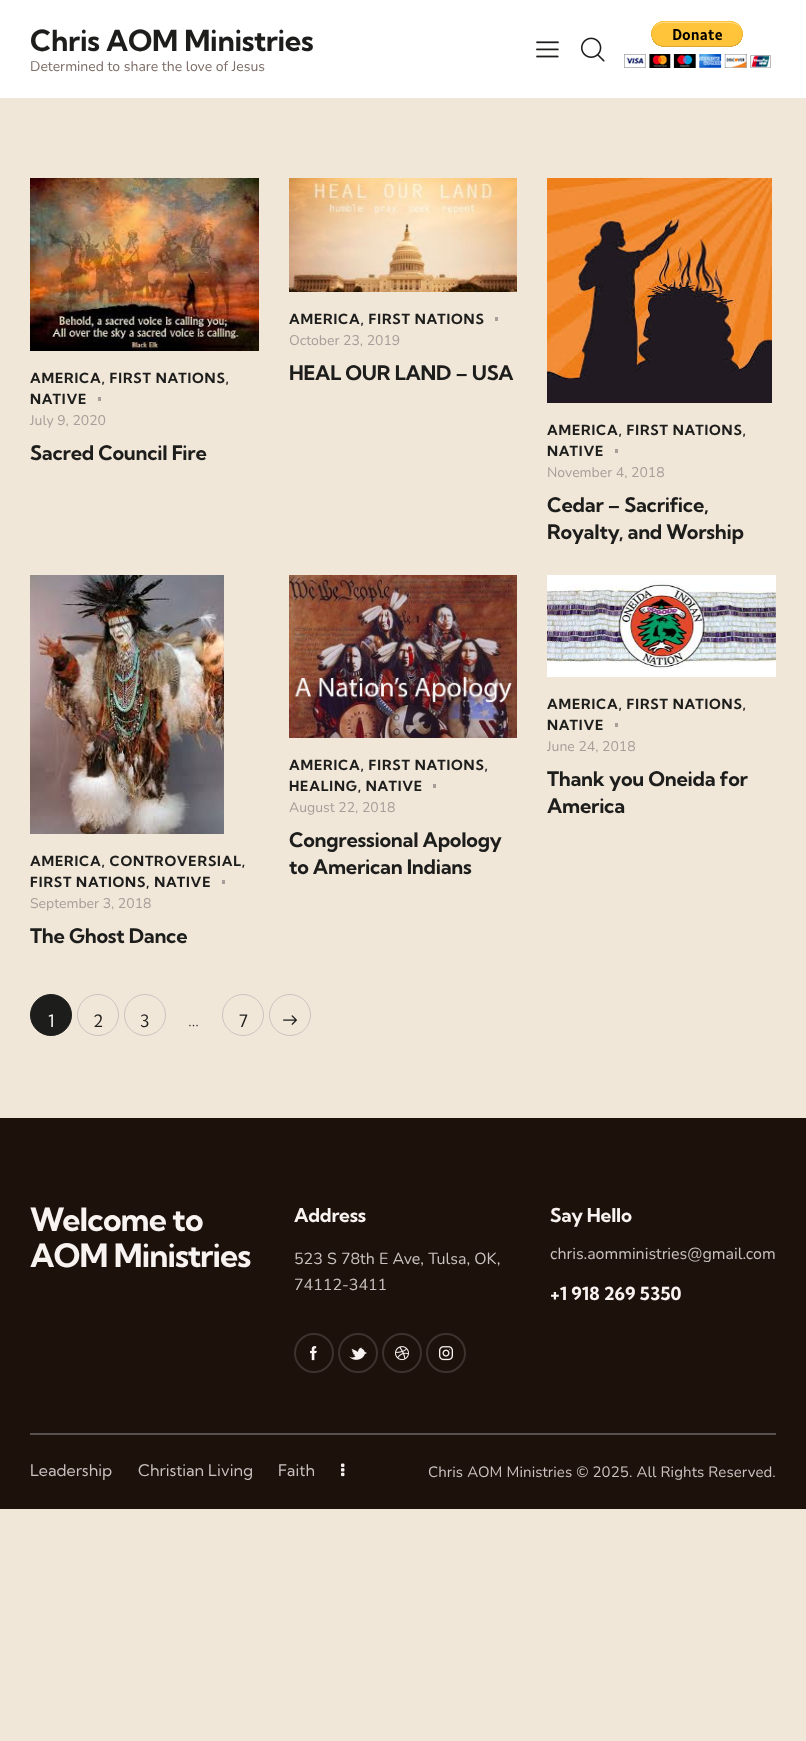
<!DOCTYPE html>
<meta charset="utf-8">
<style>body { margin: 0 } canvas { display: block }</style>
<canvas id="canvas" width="806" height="1741"></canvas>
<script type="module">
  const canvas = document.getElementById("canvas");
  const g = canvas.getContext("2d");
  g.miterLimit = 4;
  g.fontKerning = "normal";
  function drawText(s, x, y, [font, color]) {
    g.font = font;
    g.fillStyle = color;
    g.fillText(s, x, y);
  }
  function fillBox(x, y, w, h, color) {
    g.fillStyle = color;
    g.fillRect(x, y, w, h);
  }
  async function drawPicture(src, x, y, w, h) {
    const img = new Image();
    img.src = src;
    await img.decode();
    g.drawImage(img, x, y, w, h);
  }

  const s1 = ["bold 29px Kumbh Sans", "#1D1D1C"];
  const s2 = ["14px Nunito", "#7C6D66"];
  const s3 = ["bold 14px Kumbh Sans", "#1D1D1C"];
  const s4 = ["14px Nunito", "#A79E99"];
  const s5 = ["bold 20px Kumbh Sans", "#1D1D1C"];
  const s6 = ["17px Kumbh Sans", "#FFFFFF"];
  const s7 = ["17px Kumbh Sans", "#1D1D1C"];
  const s8 = ["bold 32px Kumbh Sans", "#F8F2F1"];
  const s9 = ["bold 19px Kumbh Sans", "#F8F2F1"];
  const s10 = ["16px Nunito", "#CAC2C0"];
  const s11 = ["bold 18px Kumbh Sans", "#F8F2F1"];
  const s12 = ["16px Kumbh Sans", "#CAC2C0"];
  const s13 = ["15px Nunito", "#CAC2C0"];

  fillBox(0, 0, 806, 1741, "#F1E7D9");
  fillBox(0, 0, 806, 98, "#FFFFFF");
  g.letterSpacing = "-0.25px";
  drawText("Chris AOM Ministries", 30, 51, s1);
  g.letterSpacing = "0px";
  drawText("Determined to share the love of Jesus", 30, 71, s2);
  await drawPicture("pic1.png", 536, 41, 23, 17);
  await drawPicture("pic2.png", 581, 37, 24, 25);
  await drawPicture("pic3.png", 624, 21, 147, 47);
  await drawPicture("pic4.png", 289, 178, 228, 114);
  g.letterSpacing = "0.8px";
  drawText("AMERICA, FIRST NATIONS", 289, 324, s3);
  fillBox(495, 317, 3, 4, "#A79E99");
  g.letterSpacing = "0px";
  drawText("October 23, 2019", 289, 345, s4);
  g.letterSpacing = "-0.25px";
  drawText("HEAL OUR LAND – USA", 289, 380, s5);
  await drawPicture("pic5.png", 30, 178, 229, 173);
  g.letterSpacing = "0.8px";
  drawText("AMERICA, FIRST NATIONS,", 30, 383, s3);
  drawText("NATIVE", 30, 404, s3);
  fillBox(98, 397, 3, 4, "#A79E99");
  g.letterSpacing = "0px";
  drawText("July 9, 2020", 30, 425, s4);
  g.letterSpacing = "-0.25px";
  drawText("Sacred Council Fire", 30, 460, s5);
  await drawPicture("pic6.png", 547, 178, 225, 225);
  g.letterSpacing = "0.8px";
  drawText("AMERICA, FIRST NATIONS,", 547, 435, s3);
  drawText("NATIVE", 547, 456, s3);
  fillBox(615, 449, 3, 4, "#A79E99");
  g.letterSpacing = "0px";
  drawText("November 4, 2018", 547, 477, s4);
  g.letterSpacing = "-0.25px";
  drawText("Cedar – Sacrifice,", 547, 512, s5);
  drawText("Royalty, and Worship", 547, 539, s5);
  await drawPicture("pic7.png", 289, 575, 228, 163);
  g.letterSpacing = "0.8px";
  drawText("AMERICA, FIRST NATIONS,", 289, 770, s3);
  drawText("HEALING, NATIVE", 289, 791, s3);
  fillBox(433, 784, 3, 4, "#A79E99");
  g.letterSpacing = "0px";
  drawText("August 22, 2018", 289, 812, s4);
  g.letterSpacing = "-0.25px";
  drawText("Congressional Apology", 289, 847, s5);
  drawText("to American Indians", 289, 874, s5);
  await drawPicture("pic8.png", 547, 575, 229, 102);
  g.letterSpacing = "0.8px";
  drawText("AMERICA, FIRST NATIONS,", 547, 709, s3);
  drawText("NATIVE", 547, 730, s3);
  fillBox(615, 723, 3, 4, "#A79E99");
  g.letterSpacing = "0px";
  drawText("June 24, 2018", 547, 751, s4);
  g.letterSpacing = "-0.25px";
  drawText("Thank you Oneida for", 547, 786, s5);
  drawText("America", 547, 813, s5);
  await drawPicture("pic9.png", 30, 575, 194, 259);
  g.letterSpacing = "0.8px";
  drawText("AMERICA, CONTROVERSIAL,", 30, 866, s3);
  drawText("FIRST NATIONS, NATIVE", 30, 887, s3);
  fillBox(222, 880, 3, 4, "#A79E99");
  g.letterSpacing = "0px";
  drawText("September 3, 2018", 30, 908, s4);
  g.letterSpacing = "-0.25px";
  drawText("The Ghost Dance", 30, 943, s5);
  g.beginPath();
  g.arc(51, 1015, 20.5, 0, Math.PI * 2);
  g.fill();
  g.strokeStyle = "#1D1D1C";
  g.stroke();
  g.letterSpacing = "0.1px";
  drawText("1", 48, 1027, s6);
  g.beginPath();
  g.arc(98, 1015, 20.5, 0, Math.PI * 2);
  g.strokeStyle = "#CCC3C1";
  g.stroke();
  drawText("2", 93, 1027, s7);
  g.beginPath();
  g.arc(145, 1015, 20.5, 0, Math.PI * 2);
  g.stroke();
  drawText("3", 140, 1027, s7);
  drawText("…", 188, 1026, s7);
  g.beginPath();
  g.arc(243, 1015, 20.5, 0, Math.PI * 2);
  g.stroke();
  drawText("7", 239, 1027, s7);
  g.beginPath();
  g.arc(290, 1015, 20.5, 0, Math.PI * 2);
  g.stroke();
  await drawPicture("pic10.png", 283, 1015, 14, 10);
  fillBox(0, 1118, 806, 391, "#1C110B");
  g.letterSpacing = "-0.9px";
  drawText("Welcome to", 30, 1231, s8);
  drawText("AOM Ministries", 30, 1267, s8);
  g.letterSpacing = "-0.25px";
  drawText("Address", 294, 1222, s9);
  g.letterSpacing = "0px";
  drawText("523 S 78th E Ave, Tulsa, OK,", 294, 1264, s10);
  drawText("74112-3411", 294, 1290, s10);
  g.beginPath();
  g.arc(314, 1353, 19, 0, Math.PI * 2);
  g.strokeStyle = "#3D332E";
  g.lineWidth = 2;
  g.stroke();
  await drawPicture("pic11.png", 310, 1346, 7, 15);
  g.beginPath();
  g.arc(358, 1353, 19, 0, Math.PI * 2);
  g.stroke();
  await drawPicture("pic12.png", 349, 1347, 18, 13);
  g.beginPath();
  g.arc(402, 1353, 19, 0, Math.PI * 2);
  g.stroke();
  await drawPicture("pic13.png", 395, 1346, 14, 15);
  g.beginPath();
  g.arc(446, 1353, 19, 0, Math.PI * 2);
  g.stroke();
  await drawPicture("pic14.png", 439, 1346, 14, 15);
  g.letterSpacing = "-0.25px";
  drawText("Say Hello", 550, 1222, s9);
  g.letterSpacing = "0px";
  drawText("chris.aomministries@gmail.com", 550, 1259, s10);
  drawText("+1 918 269 5350", 550, 1300, s11);
  fillBox(30, 1433, 746, 2, "#5A524E");
  drawText("Leadership", 30, 1476, s12);
  drawText("Christian Living", 138, 1476, s12);
  drawText("Faith", 278, 1476, s12);
  await drawPicture("pic15.png", 341, 1463, 4, 14);
  g.letterSpacing = "0.1px";
  drawText("Chris AOM Ministries © 2025. All Rights Reserved.", 428, 1477, s13);
</script>
